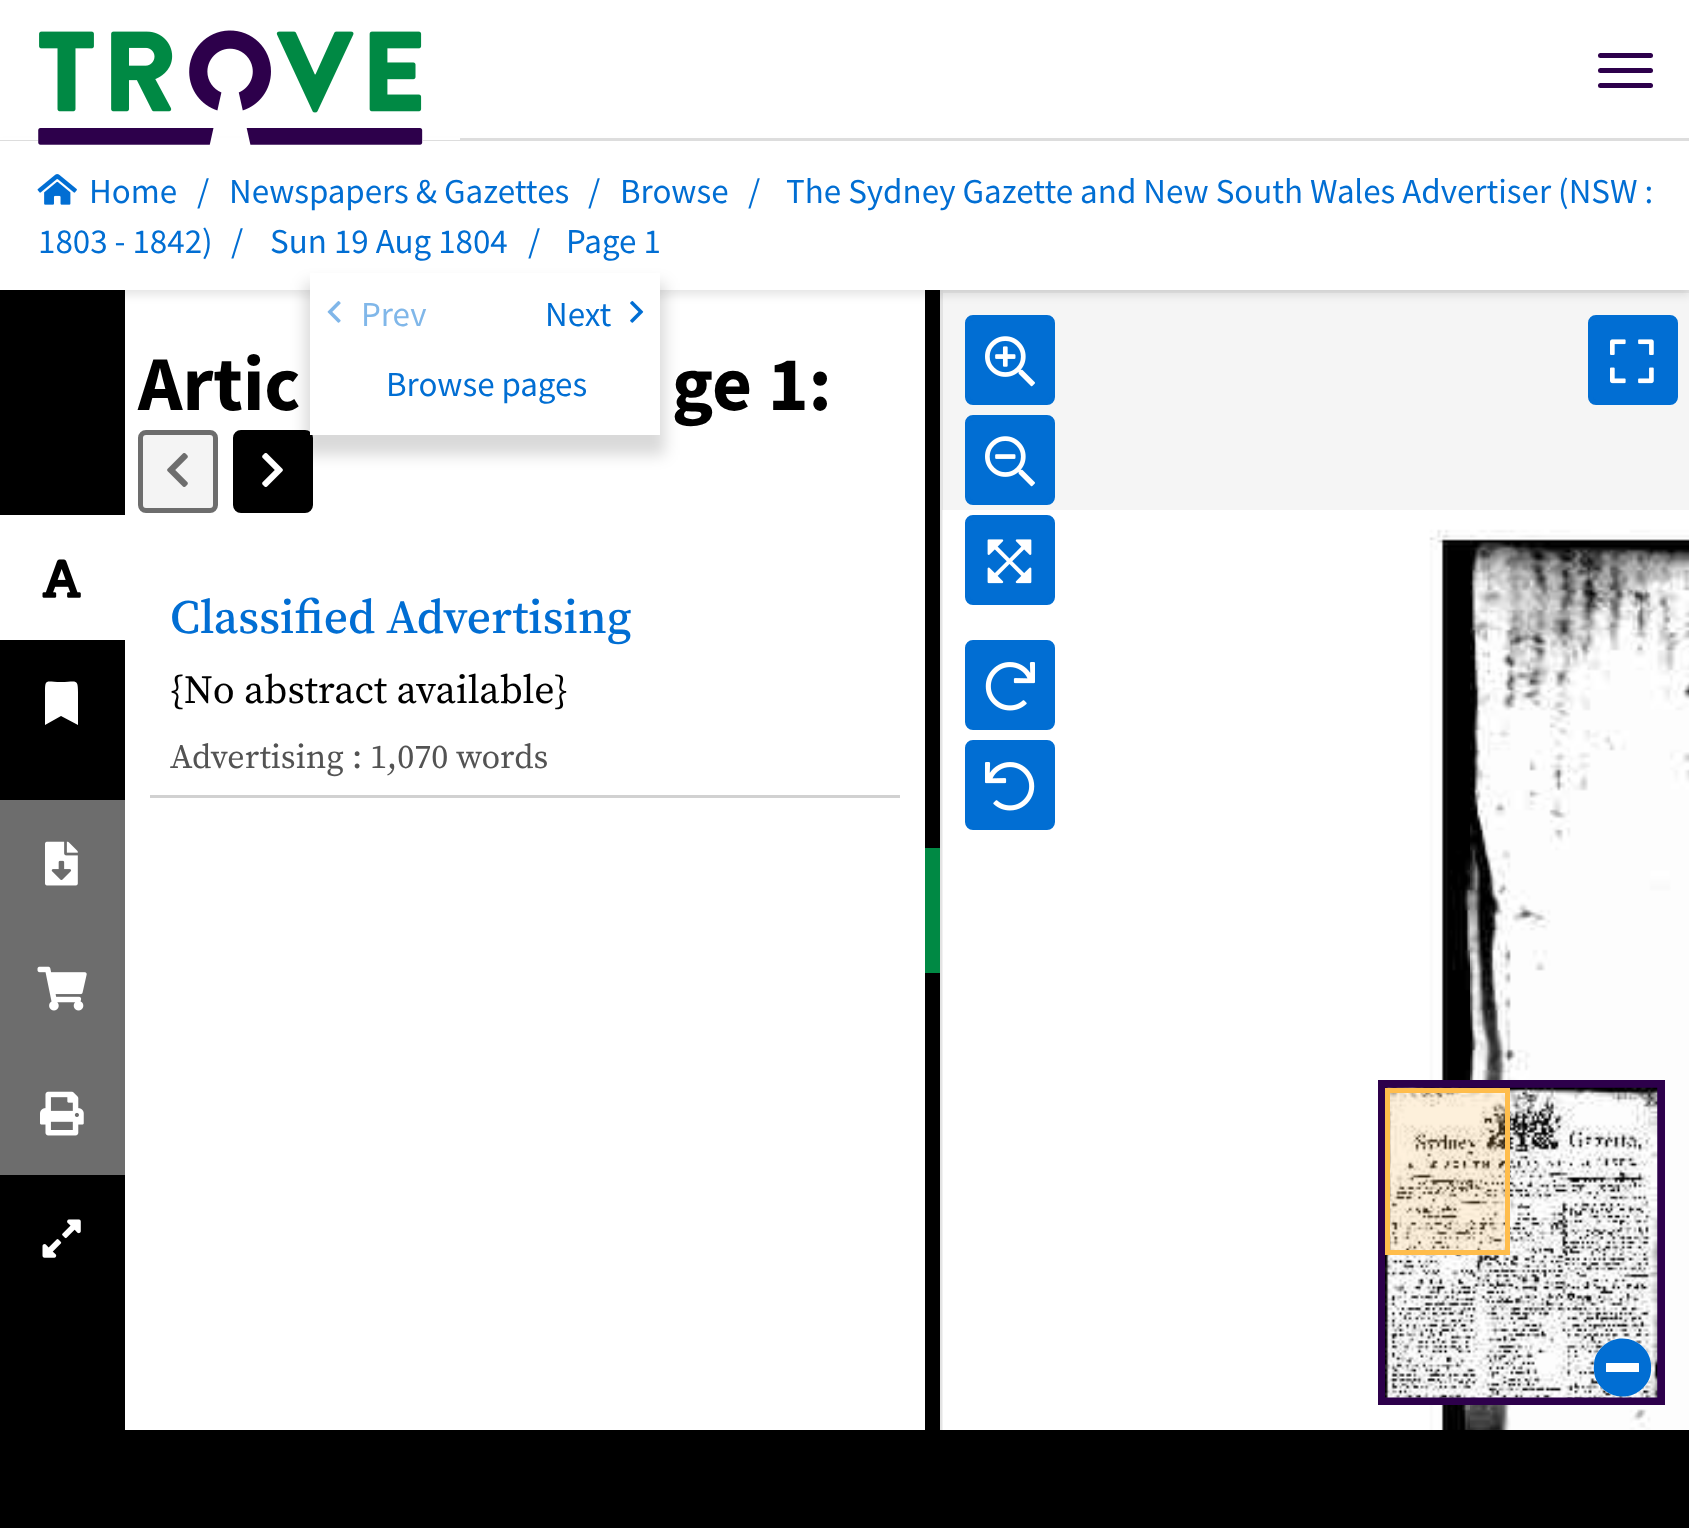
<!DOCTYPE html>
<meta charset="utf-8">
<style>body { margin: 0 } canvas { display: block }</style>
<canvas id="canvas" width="1689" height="1528"></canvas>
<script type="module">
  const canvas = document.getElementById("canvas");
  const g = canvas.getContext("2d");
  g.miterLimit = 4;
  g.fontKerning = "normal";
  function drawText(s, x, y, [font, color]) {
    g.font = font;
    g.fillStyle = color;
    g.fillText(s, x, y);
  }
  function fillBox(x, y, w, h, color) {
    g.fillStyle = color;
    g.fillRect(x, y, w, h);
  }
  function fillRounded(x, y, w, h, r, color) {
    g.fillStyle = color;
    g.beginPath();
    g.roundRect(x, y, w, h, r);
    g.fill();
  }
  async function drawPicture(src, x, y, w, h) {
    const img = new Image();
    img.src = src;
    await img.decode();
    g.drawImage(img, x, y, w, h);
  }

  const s1 = ["35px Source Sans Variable", "#016ED3"];
  const s2 = ["35px Source Sans Variable", "#80B7E9"];
  const s3 = ["bold 77.5px Source Sans Variable", "#000000"];
  const s4 = ["500 47.5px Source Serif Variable", "#016ED3"];
  const s5 = ["40px Source Serif Variable", "#000000"];
  const s6 = ["34px Source Serif Variable", "#535353"];

  fillBox(0, 0, 1689, 1528, "#FFFFFF");
  fillBox(0, 290, 125, 1140, "#000000");
  fillBox(925, 290, 15, 1140, "#000000");
  fillBox(943, 293, 746, 217, "#F5F5F5");
  fillBox(943, 290, 746, 3, "#E9E9E9");
  fillBox(940, 290, 3, 1140, "#E3E3E3");
  g.fillStyle = "rgba(0, 0, 0, 0.1)";
  g.filter = "blur(5px)";
  g.beginPath();
  g.rect(0, 145, 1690, 150);
  g.fill();
  g.filter = "none";
  fillBox(0, 138, 1689, 3, "#DDDDDD");
  fillBox(0, 138, 460, 2, "#FFFFFF");
  fillBox(38, 140, 385, 1, "#FFFFFF");
  fillBox(0, 141, 1689, 149, "#FFFFFF");
  await drawPicture("pic1.png", 38, 30, 385, 115);
  fillRounded(1598, 53, 55, 5, 2.5, "#2D004B");
  fillRounded(1598, 68, 55, 5, 2.5, "#2D004B");
  fillRounded(1598, 83, 55, 5, 2.5, "#2D004B");
  await drawPicture("pic2.png", 37, 174, 40, 31);
  drawText("Home", 89, 203, s1);
  drawText("/", 197, 203, s1);
  drawText("Newspapers & Gazettes", 229, 203, s1);
  drawText("/", 588, 203, s1);
  drawText("Browse", 620, 203, s1);
  drawText("/", 748, 203, s1);
  drawText("The Sydney Gazette and New South Wales Advertiser (NSW :", 786, 203, s1);
  drawText("1803 - 1842)", 38, 253, s1);
  drawText("/", 231, 253, s1);
  drawText("/", 528, 253, s1);
  drawText("Page 1", 566, 253, s1);
  g.fillStyle = "#000000";
  g.beginPath();
  g.roundRect(235.5, 432.5, 75, 78, 5.5);
  g.fill();
  g.strokeStyle = "#000000";
  g.lineWidth = 5;
  g.stroke();
  await drawPicture("pic11.png", 262, 453, 21, 34);
  g.fillStyle = "rgba(0, 0, 0, 0.15)";
  g.filter = "blur(7.5px)";
  g.beginPath();
  g.rect(305, 283, 360, 172);
  g.fill();
  g.filter = "none";
  fillBox(310, 273, 350, 162, "#FFFFFF");
  await drawPicture("pic3.png", 327, 301, 14, 22);
  drawText("Prev", 361, 326, s2);
  drawText("Next", 545, 326, s1);
  await drawPicture("pic4.png", 630, 301, 14, 22);
  drawText("Browse pages", 386, 396, s1);
  drawText("Sun 19 Aug 1804", 270, 253, s1);
  fillBox(0, 515, 125, 125, "#FFFFFF");
  await drawPicture("pic5.png", 42, 559, 39, 39);
  g.beginPath();
  g.moveTo(45, 725);
  g.lineTo(45, 692);
  g.bezierCurveTo(45, 678, 46, 682, 61, 682);
  g.bezierCurveTo(76, 682, 78, 678, 78, 692);
  g.lineTo(78, 725);
  g.lineTo(61, 716);
  g.closePath();
  g.fill();
  fillBox(0, 800, 125, 375, "#6D6D6D");
  await drawPicture("pic6.png", 45, 841, 33, 45);
  await drawPicture("pic7.png", 37, 966, 50, 45);
  await drawPicture("pic8.png", 40, 1091, 44, 45);
  await drawPicture("pic9.png", 42, 1219, 39, 39);
  drawText("Artic", 138, 410, s3);
  drawText("ge 1:", 672, 410, s3);
  g.fillStyle = "#F4F4F4";
  g.beginPath();
  g.roundRect(140.5, 432.5, 75, 78, 5.5);
  g.fill();
  g.strokeStyle = "#6D6D6D";
  g.stroke();
  await drawPicture("pic10.png", 167, 453, 21, 34);
  fillBox(150, 795, 750, 3, "#D1D1D1");
  drawText("Classified Advertising", 170, 633, s4);
  drawText("{No abstract available}", 170, 703, s5);
  drawText("Advertising : 1,070 words", 170, 768, s6);
  fillBox(925, 848, 15, 125, "#008944");
  await drawPicture("pic12.png", 942, 510, 528, 640);
  await drawPicture("pic13.png", 1470, 510, 219, 640);
  await drawPicture("pic14.png", 942, 1150, 528, 280);
  await drawPicture("pic15.png", 1470, 1150, 219, 280);
  g.fillStyle = "#016ED3";
  g.beginPath();
  g.roundRect(967.5, 317.5, 85, 85, 5.5);
  g.fill();
  g.strokeStyle = "#016ED3";
  g.stroke();
  await drawPicture("pic16.png", 985, 336, 50, 51);
  g.beginPath();
  g.roundRect(1590.5, 317.5, 85, 85, 5.5);
  g.fill();
  g.stroke();
  await drawPicture("pic17.png", 1610, 339, 44, 45);
  g.beginPath();
  g.roundRect(967.5, 417.5, 85, 85, 5.5);
  g.fill();
  g.stroke();
  await drawPicture("pic18.png", 985, 436, 50, 51);
  g.beginPath();
  g.roundRect(967.5, 517.5, 85, 85, 5.5);
  g.fill();
  g.stroke();
  await drawPicture("pic19.png", 987, 539, 45, 45);
  g.beginPath();
  g.roundRect(967.5, 642.5, 85, 85, 5.5);
  g.fill();
  g.stroke();
  await drawPicture("pic20.png", 985, 662, 50, 49);
  g.beginPath();
  g.roundRect(967.5, 742.5, 85, 85, 5.5);
  g.fill();
  g.stroke();
  await drawPicture("pic21.png", 985, 762, 50, 49);
  g.strokeStyle = "#2D004B";
  g.lineWidth = 8;
  g.strokeRect(1382, 1084, 279, 317);
  await drawPicture("pic22.png", 1385, 1087, 273, 311);
  g.fillStyle = "rgba(255, 189, 76, 0.1)";
  g.beginPath();
  g.rect(1387.5, 1090.5, 120, 162);
  g.fill();
  g.strokeStyle = "#FFBD4C";
  g.lineWidth = 5;
  g.stroke();
  fillBox(1390, 1093, 115, 157, "rgba(255, 189, 76, 0.1)");
  g.fillStyle = "#FFFFFF";
  g.beginPath();
  g.moveTo(1602, 1347);
  g.bezierCurveTo(1621, 1328, 1654, 1343, 1651, 1370);
  g.bezierCurveTo(1651, 1377, 1648, 1383, 1643, 1388);
  g.bezierCurveTo(1624, 1407, 1591, 1392, 1594, 1365);
  g.bezierCurveTo(1594, 1358, 1597, 1352, 1602, 1347);
  g.closePath();
  g.fill();
  g.fillStyle = "#016ED3";
  g.beginPath();
  g.moveTo(1602, 1347);
  g.bezierCurveTo(1621, 1328, 1654, 1343, 1651, 1370);
  g.bezierCurveTo(1651, 1377, 1648, 1383, 1643, 1388);
  g.bezierCurveTo(1624, 1407, 1591, 1392, 1594, 1365);
  g.bezierCurveTo(1594, 1358, 1597, 1352, 1602, 1347);
  g.closePath();
  g.moveTo(1607, 1372);
  g.lineTo(1638, 1372);
  g.bezierCurveTo(1639, 1372, 1639, 1372, 1639, 1371);
  g.lineTo(1639, 1364);
  g.bezierCurveTo(1639, 1363, 1639, 1363, 1638, 1363);
  g.lineTo(1607, 1363);
  g.bezierCurveTo(1606, 1363, 1606, 1363, 1606, 1364);
  g.lineTo(1606, 1371);
  g.bezierCurveTo(1606, 1372, 1606, 1372, 1607, 1372);
  g.closePath();
  g.fill();
  fillBox(0, 1430, 1689, 98, "#000000");
</script>
